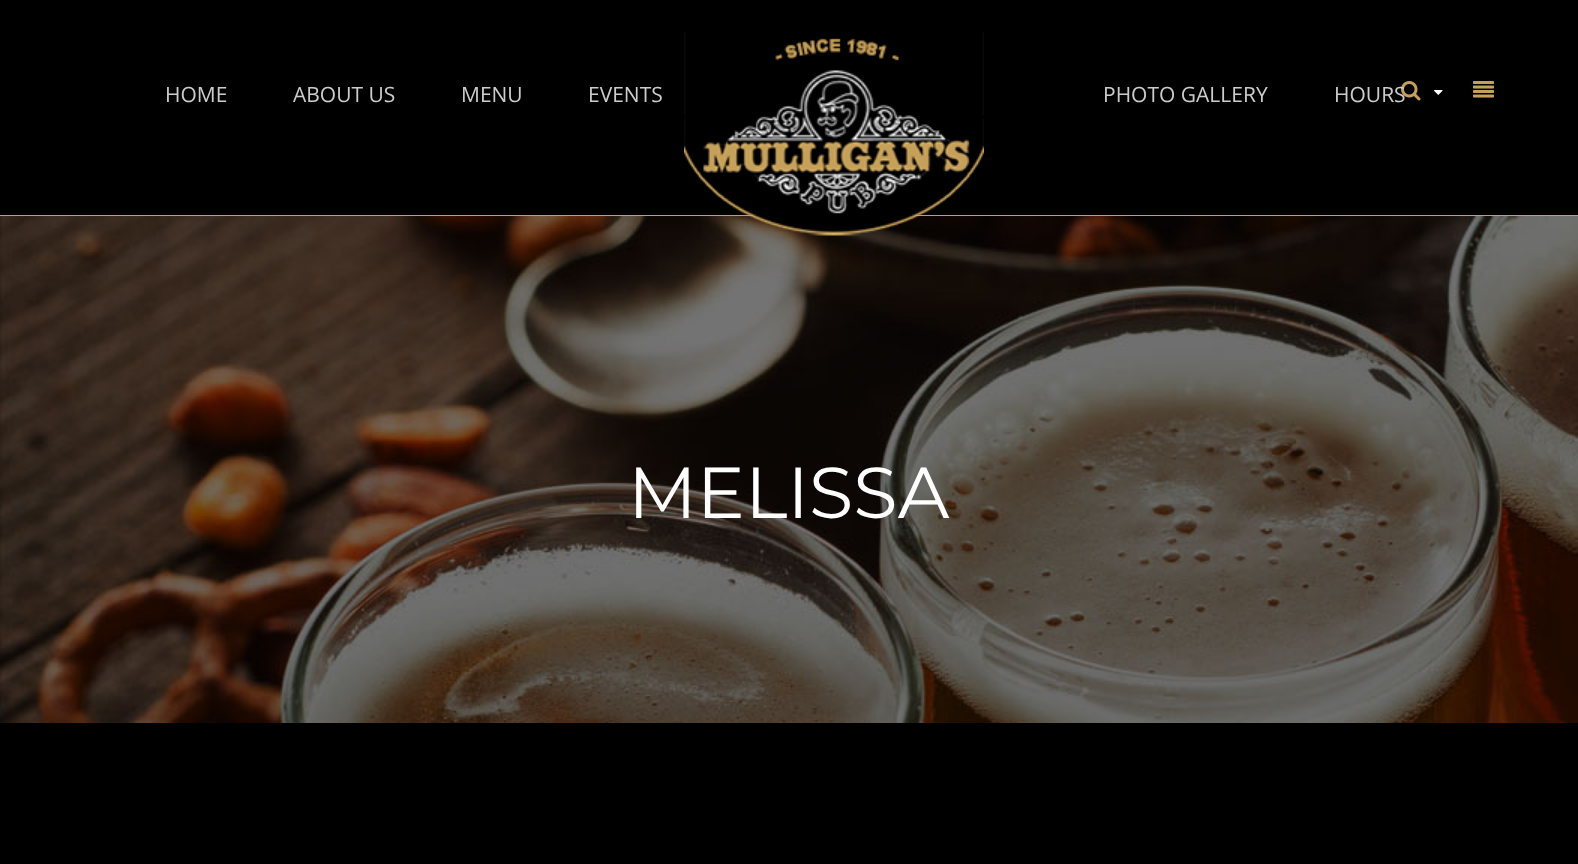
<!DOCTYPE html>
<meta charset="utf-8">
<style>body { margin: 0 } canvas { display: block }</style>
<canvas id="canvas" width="1578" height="864"></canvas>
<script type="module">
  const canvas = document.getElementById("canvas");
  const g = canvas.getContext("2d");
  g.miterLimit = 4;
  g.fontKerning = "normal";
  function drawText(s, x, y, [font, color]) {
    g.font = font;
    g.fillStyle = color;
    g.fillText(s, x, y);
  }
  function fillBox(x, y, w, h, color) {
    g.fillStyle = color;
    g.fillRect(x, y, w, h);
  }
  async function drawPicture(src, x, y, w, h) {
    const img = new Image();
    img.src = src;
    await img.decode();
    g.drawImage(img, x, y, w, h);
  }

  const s1 = ["21px Open Sans", "#CCCCCC"];
  const s2 = ["100 72px Montserrat", "#FFFFFF"];

  fillBox(0, 0, 1578, 864, "#000000");
  fillBox(0, 215, 1578, 1, "#C5A059");
  await drawPicture("pic5.png", 0, 216, 1578, 507);
  await drawPicture("pic1.png", 684, 31, 300, 205);
  await drawPicture("pic2.png", 1401, 81, 20, 20);
  await drawPicture("pic3.png", 1473, 81, 21, 17);
  drawText("HOME", 165, 102, s1);
  drawText("ABOUT US", 293, 102, s1);
  drawText("MENU", 461, 102, s1);
  drawText("EVENTS", 588, 102, s1);
  drawText("PHOTO GALLERY", 1103, 102, s1);
  drawText("HOURS", 1334, 102, s1);
  await drawPicture("pic4.png", 1434, 90, 9, 5);
  drawText("MELISSA", 628, 518, s2);
</script>
